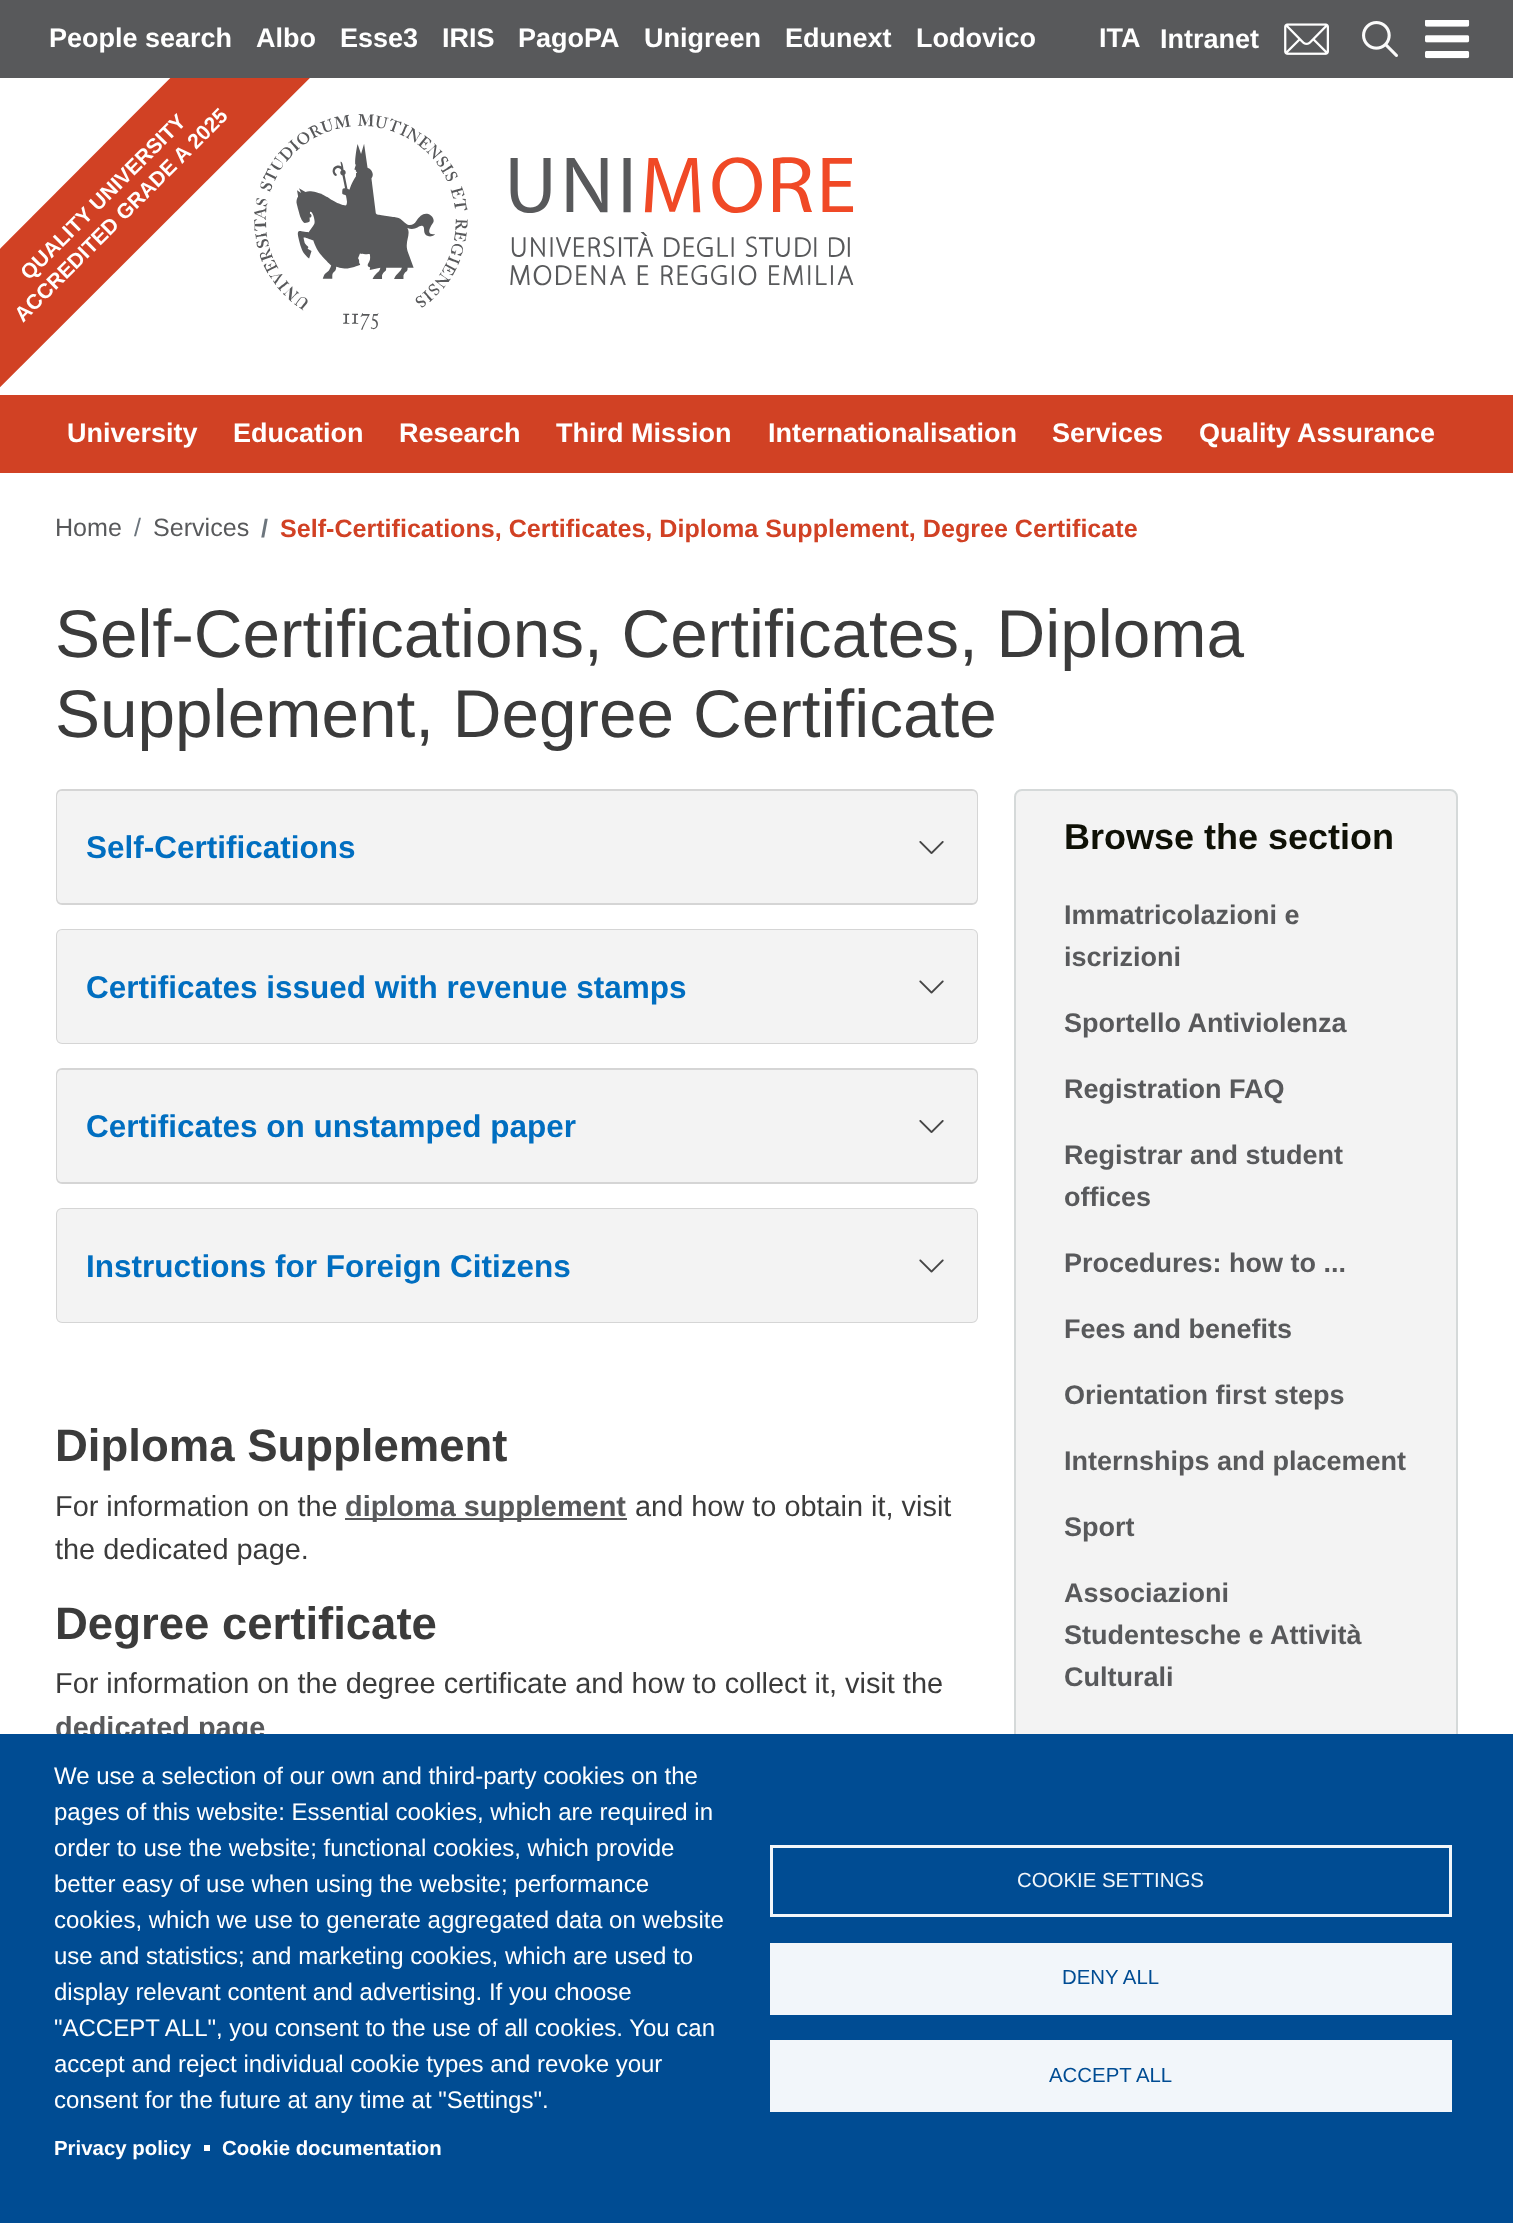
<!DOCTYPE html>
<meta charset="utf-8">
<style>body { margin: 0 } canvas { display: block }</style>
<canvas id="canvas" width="1513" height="2223"></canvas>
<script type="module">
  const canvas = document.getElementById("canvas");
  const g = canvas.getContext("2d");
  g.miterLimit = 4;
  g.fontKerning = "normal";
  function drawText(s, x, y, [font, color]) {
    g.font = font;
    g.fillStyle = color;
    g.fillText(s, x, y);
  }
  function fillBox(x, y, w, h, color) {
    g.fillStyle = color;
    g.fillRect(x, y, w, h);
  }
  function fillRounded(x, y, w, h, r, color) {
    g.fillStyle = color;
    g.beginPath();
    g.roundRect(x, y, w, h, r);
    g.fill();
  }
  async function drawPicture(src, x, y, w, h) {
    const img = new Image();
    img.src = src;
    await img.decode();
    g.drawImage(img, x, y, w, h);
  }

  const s1 = ["bold 27px Liberation Sans", "#FFFFFF"];
  const s2 = ["25.1px Liberation Sans", "#58595B"];
  const s3 = ["25.1px Liberation Sans", "#6C757D"];
  const s4 = ["bold 25.1px Liberation Sans", "#6C757D"];
  const s5 = ["bold 25.1px Liberation Sans", "#D14124"];
  const s6 = ["67.5px Liberation Sans", "#3B3B3B"];
  const s7 = ["bold 31.5px Liberation Sans", "#006EC0"];
  const s8 = ["bold 45.5px Liberation Sans", "#3B3B3B"];
  const s9 = ["28.9px Liberation Sans", "#3B3B3B"];
  const s10 = ["bold 28.9px Liberation Sans", "#58595B"];
  const s11 = ["bold 36px Liberation Sans", "#0F1106"];
  const s12 = ["bold 27px Liberation Sans", "#58595B"];
  const s13 = ["24px Liberation Sans", "#FFFFFF"];
  const s14 = ["bold 20.4px Liberation Sans", "#FFFFFF"];
  const s15 = ["20.4px Liberation Sans", "#F2F6FA"];
  const s16 = ["20.4px Liberation Sans", "#004C93"];

  fillBox(0, 0, 1513, 2223, "#FFFFFF");
  fillBox(0, 0, 1513, 78, "#58595B");
  drawText("People search", 49, 47, s1);
  drawText("Albo", 256, 47, s1);
  drawText("Esse3", 340, 47, s1);
  drawText("IRIS", 442, 47, s1);
  drawText("PagoPA", 518, 47, s1);
  drawText("Unigreen", 644, 47, s1);
  drawText("Edunext", 785, 47, s1);
  drawText("Lodovico", 916, 47, s1);
  drawText("ITA", 1099, 47, s1);
  drawText("Intranet", 1160, 48, s1);
  await drawPicture("pic1.png", 1284, 23, 45, 32);
  await drawPicture("pic2.png", 1362, 21, 36, 36);
  await drawPicture("pic3.png", 1425, 20, 45, 39);
  g.save();
  g.beginPath();
  g.rect(0, 78, 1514, 395);
  g.clip();
  g.fillStyle = "#D14124";
  g.beginPath();
  g.moveTo(-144, 393);
  g.lineTo(299, -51);
  g.lineTo(369, 19);
  g.lineTo(-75, 462);
  g.closePath();
  g.fill();
  g.restore();
  g.font = "bold 21px Liberation Sans";
  g.save();
  g.translate(29, 281);
  g.rotate(-45 * Math.PI / 180);
  g.fillText("QUALITY UNIVERSITY", 0, 0);
  g.restore();
  g.save();
  g.translate(23, 323);
  g.rotate(-45 * Math.PI / 180);
  g.fillText("ACCREDITED GRADE A 2025", 0, 0);
  g.restore();
  await drawPicture("pic4.png", 254, 114, 600, 216);
  fillBox(0, 395, 1513, 78, "#D14124");
  drawText("University", 67, 442, s1);
  drawText("Education", 233, 442, s1);
  drawText("Research", 399, 442, s1);
  drawText("Third Mission", 556, 442, s1);
  drawText("Internationalisation", 768, 442, s1);
  drawText("Services", 1052, 442, s1);
  drawText("Quality Assurance", 1199, 442, s1);
  drawText("Home", 55, 536, s2);
  drawText("/", 134, 536, s3);
  drawText("Services", 153, 536, s2);
  drawText("/", 261, 537, s4);
  drawText("Self-Certifications, Certificates, Diploma Supplement, Degree Certificate", 280, 537, s5);
  drawText("Self-Certifications, Certificates, Diploma", 55, 657, s6);
  drawText("Supplement, Degree Certificate", 55, 737, s6);
  fillRounded(56, 789, 922, 116, 6, "#F3F3F3");
  g.beginPath();
  g.roundRect(57, 790, 920, 114, 5);
  g.strokeStyle = "rgba(0, 0, 0, 0.12)";
  g.lineWidth = 2;
  g.stroke();
  fillRounded(57, 791, 920, 112, 5, "#F3F3F3");
  drawText("Self-Certifications", 86, 858, s7);
  await drawPicture("pic5.png", 919, 841, 25, 13);
  fillRounded(56, 929, 922, 115, 6, "#F3F3F3");
  g.beginPath();
  g.roundRect(57, 930, 920, 113, 5);
  g.stroke();
  fillRounded(57, 930, 920, 113, 5, "#F3F3F3");
  drawText("Certificates issued with revenue stamps", 86, 998, s7);
  await drawPicture("pic6.png", 919, 980, 25, 14);
  fillRounded(56, 1068, 922, 116, 6, "#F3F3F3");
  g.beginPath();
  g.roundRect(57, 1069, 920, 114, 5);
  g.stroke();
  fillRounded(57, 1070, 920, 112, 5, "#F3F3F3");
  drawText("Certificates on unstamped paper", 86, 1137, s7);
  await drawPicture("pic5.png", 919, 1120, 25, 13);
  fillRounded(56, 1208, 922, 115, 6, "#F3F3F3");
  g.beginPath();
  g.roundRect(57, 1209, 920, 113, 5);
  g.stroke();
  fillRounded(57, 1209, 920, 113, 5, "#F3F3F3");
  drawText("Instructions for Foreign Citizens", 86, 1277, s7);
  await drawPicture("pic6.png", 919, 1259, 25, 14);
  drawText("Diploma Supplement", 55, 1461, s8);
  drawText("For information on the", 55, 1516, s9);
  fillBox(345, 1518, 282, 2, "#58595B");
  drawText("diploma supplement", 345, 1516, s10);
  drawText("and how to obtain it, visit", 635, 1516, s9);
  drawText("the dedicated page.", 55, 1559, s9);
  drawText("Degree certificate", 55, 1639, s8);
  drawText("For information on the degree certificate and how to collect it, visit the", 55, 1693, s9);
  drawText("dedicated page", 55, 1737, s10);
  g.fillStyle = "#F3F3F3";
  g.beginPath();
  g.roundRect(1015, 790, 442, 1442, 7);
  g.fill();
  g.strokeStyle = "#D5D9D9";
  g.stroke();
  drawText("Browse the section", 1064, 849, s11);
  drawText("Immatricolazioni e", 1064, 924, s12);
  drawText("iscrizioni", 1064, 966, s12);
  drawText("Sportello Antiviolenza", 1064, 1032, s12);
  drawText("Registration FAQ", 1064, 1098, s12);
  drawText("Registrar and student", 1064, 1164, s12);
  drawText("offices", 1064, 1206, s12);
  drawText("Procedures: how to ...", 1064, 1272, s12);
  drawText("Fees and benefits", 1064, 1338, s12);
  drawText("Orientation first steps", 1064, 1404, s12);
  drawText("Internships and placement", 1064, 1470, s12);
  drawText("Sport", 1064, 1536, s12);
  drawText("Associazioni", 1064, 1602, s12);
  drawText("Studentesche e Attività", 1064, 1644, s12);
  drawText("Culturali", 1064, 1686, s12);
  fillBox(0, 1734, 1513, 489, "#004C93");
  drawText("We use a selection of our own and third-party cookies on the", 54, 1784, s13);
  drawText("pages of this website: Essential cookies, which are required in", 54, 1820, s13);
  drawText("order to use the website; functional cookies, which provide", 54, 1856, s13);
  drawText("better easy of use when using the website; performance", 54, 1892, s13);
  drawText("cookies, which we use to generate aggregated data on website", 54, 1928, s13);
  drawText("use and statistics; and marketing cookies, which are used to", 54, 1964, s13);
  drawText("display relevant content and advertising. If you choose", 54, 2000, s13);
  drawText("\"ACCEPT ALL\", you consent to the use of all cookies. You can", 54, 2036, s13);
  drawText("accept and reject individual cookie types and revoke your", 54, 2072, s13);
  drawText("consent for the future at any time at \"Settings\".", 54, 2108, s13);
  drawText("Privacy policy", 54, 2155, s14);
  fillBox(204, 2145, 6, 6, "#FFFFFF");
  drawText("Cookie documentation", 222, 2155, s14);
  g.strokeStyle = "#F2F6FA";
  g.lineWidth = 3;
  g.strokeRect(771.5, 1846.5, 679, 69);
  drawText("COOKIE SETTINGS", 1017, 1887, s15);
  fillBox(770, 1943, 682, 72, "#F2F6FA");
  drawText("DENY ALL", 1062, 1984, s16);
  fillBox(770, 2040, 682, 72, "#F2F6FA");
  drawText("ACCEPT ALL", 1049, 2082, s16);
</script>
